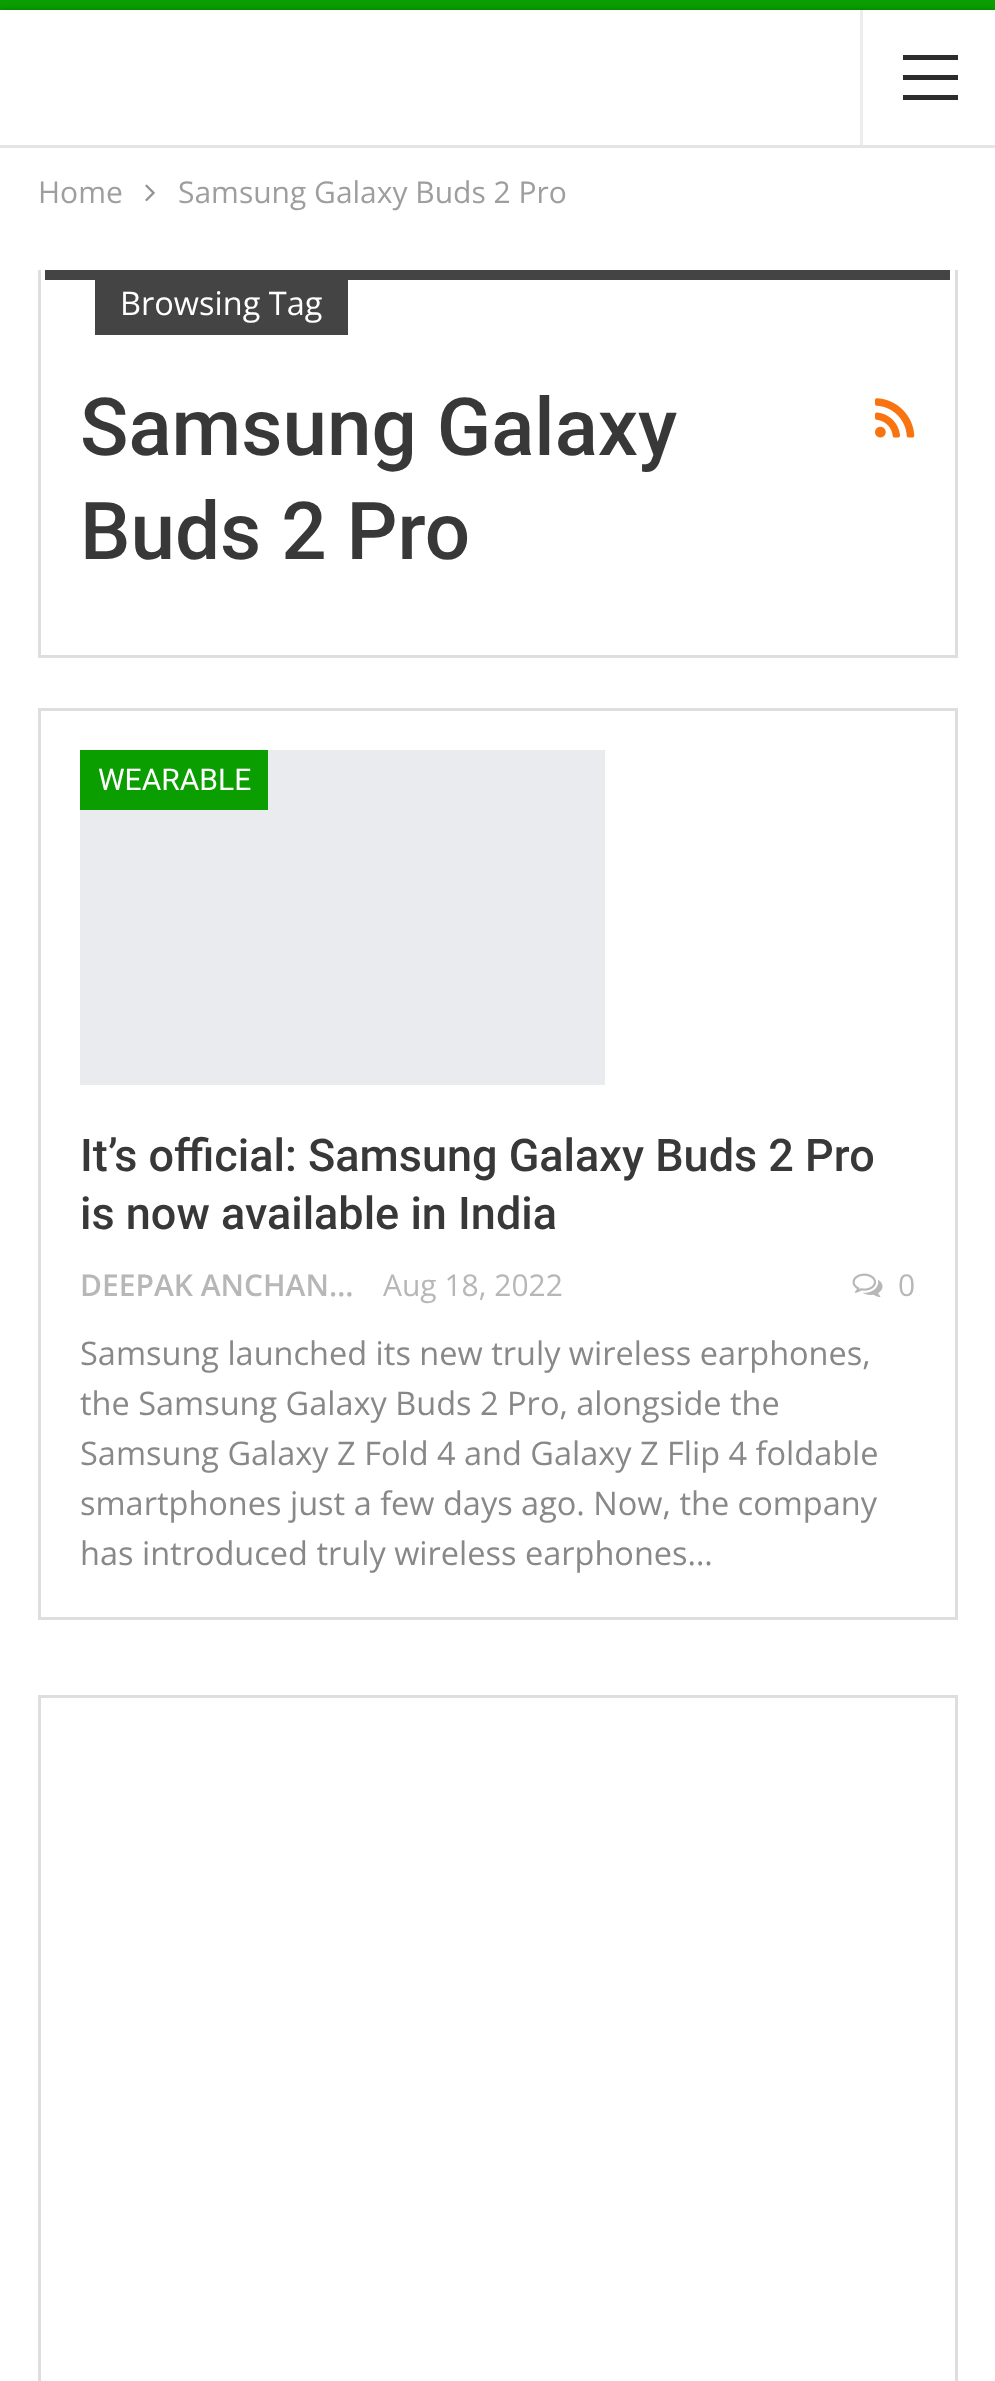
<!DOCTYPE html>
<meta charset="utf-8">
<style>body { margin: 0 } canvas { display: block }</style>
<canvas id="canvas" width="995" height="2381"></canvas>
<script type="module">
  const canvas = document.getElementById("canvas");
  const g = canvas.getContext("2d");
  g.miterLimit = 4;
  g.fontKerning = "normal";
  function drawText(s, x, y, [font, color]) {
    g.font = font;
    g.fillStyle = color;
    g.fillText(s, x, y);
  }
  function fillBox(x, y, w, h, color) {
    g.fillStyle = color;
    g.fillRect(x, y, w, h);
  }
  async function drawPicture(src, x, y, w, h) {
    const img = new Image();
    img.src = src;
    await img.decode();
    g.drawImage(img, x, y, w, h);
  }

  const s1 = ["30px Open Sans", "#9E9E9E"];
  const s2 = ["32.5px Open Sans", "#FFFFFF"];
  const s3 = ["500 80px Roboto", "#383838"];
  const s4 = ["30px Roboto", "#FFFFFF"];
  const s5 = ["500 45px Roboto", "#383838"];
  const s6 = ["600 30px Open Sans", "#B7B7B7"];
  const s7 = ["30px Open Sans", "#B7B7B7"];
  const s8 = ["32.5px Open Sans", "#888888"];

  fillBox(0, 0, 995, 2381, "#0A9E01");
  g.fillStyle = "rgba(0, 0, 0, 0.27)";
  g.filter = "blur(2.5px)";
  g.beginPath();
  g.rect(0, 10, 995, 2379);
  g.fill();
  g.filter = "none";
  fillBox(0, 10, 995, 2371, "#FFFFFF");
  fillBox(0, 145, 995, 3, "#E5E5E5");
  fillBox(860, 10, 3, 135, "#EDEDED");
  fillBox(903, 75, 55, 5, "#2C2C2C");
  fillBox(903, 55, 55, 5, "#2C2C2C");
  fillBox(903, 95, 55, 5, "#2C2C2C");
  drawText("Home", 38, 203, s1);
  await drawPicture("pic1.png", 145, 184, 10, 18);
  drawText("Samsung Galaxy Buds 2 Pro", 178, 203, s1);
  fillBox(955, 270, 3, 388, "#DEDEDE");
  fillBox(38, 655, 920, 3, "#DEDEDE");
  fillBox(38, 270, 3, 388, "#DEDEDE");
  fillBox(45, 270, 905, 10, "#444444");
  fillBox(95, 280, 253, 55, "#444444");
  drawText("Browsing Tag", 120, 315, s2);
  drawText("Samsung Galaxy", 80, 455, s3);
  drawText("Buds 2 Pro", 80, 559, s3);
  await drawPicture("pic2.png", 875, 398, 40, 40);
  g.strokeStyle = "#DEDEDE";
  g.lineWidth = 3;
  g.strokeRect(39.5, 709.5, 917, 909);
  fillBox(80, 750, 525, 335, "#E9EBEE");
  fillBox(80, 750, 188, 60, "#0A9E01");
  drawText("WEARABLE", 98, 790, s4);
  drawText("It’s official: Samsung Galaxy Buds 2 Pro", 80, 1171, s5);
  drawText("is now available in India", 80, 1229, s5);
  drawText("DEEPAK ANCHAN…", 80, 1296, s6);
  drawText("Aug 18, 2022", 383, 1296, s7);
  await drawPicture("pic3.png", 852, 1273, 31, 25);
  drawText("0", 898, 1296, s7);
  drawText("Samsung launched its new truly wireless earphones,", 80, 1365, s8);
  drawText("the Samsung Galaxy Buds 2 Pro, alongside the", 80, 1415, s8);
  drawText("Samsung Galaxy Z Fold 4 and Galaxy Z Flip 4 foldable", 80, 1465, s8);
  drawText("smartphones just a few days ago. Now, the company", 80, 1515, s8);
  drawText("has introduced truly wireless earphones…", 80, 1565, s8);
  g.strokeRect(39.5, 1696.5, 917, 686);
</script>
